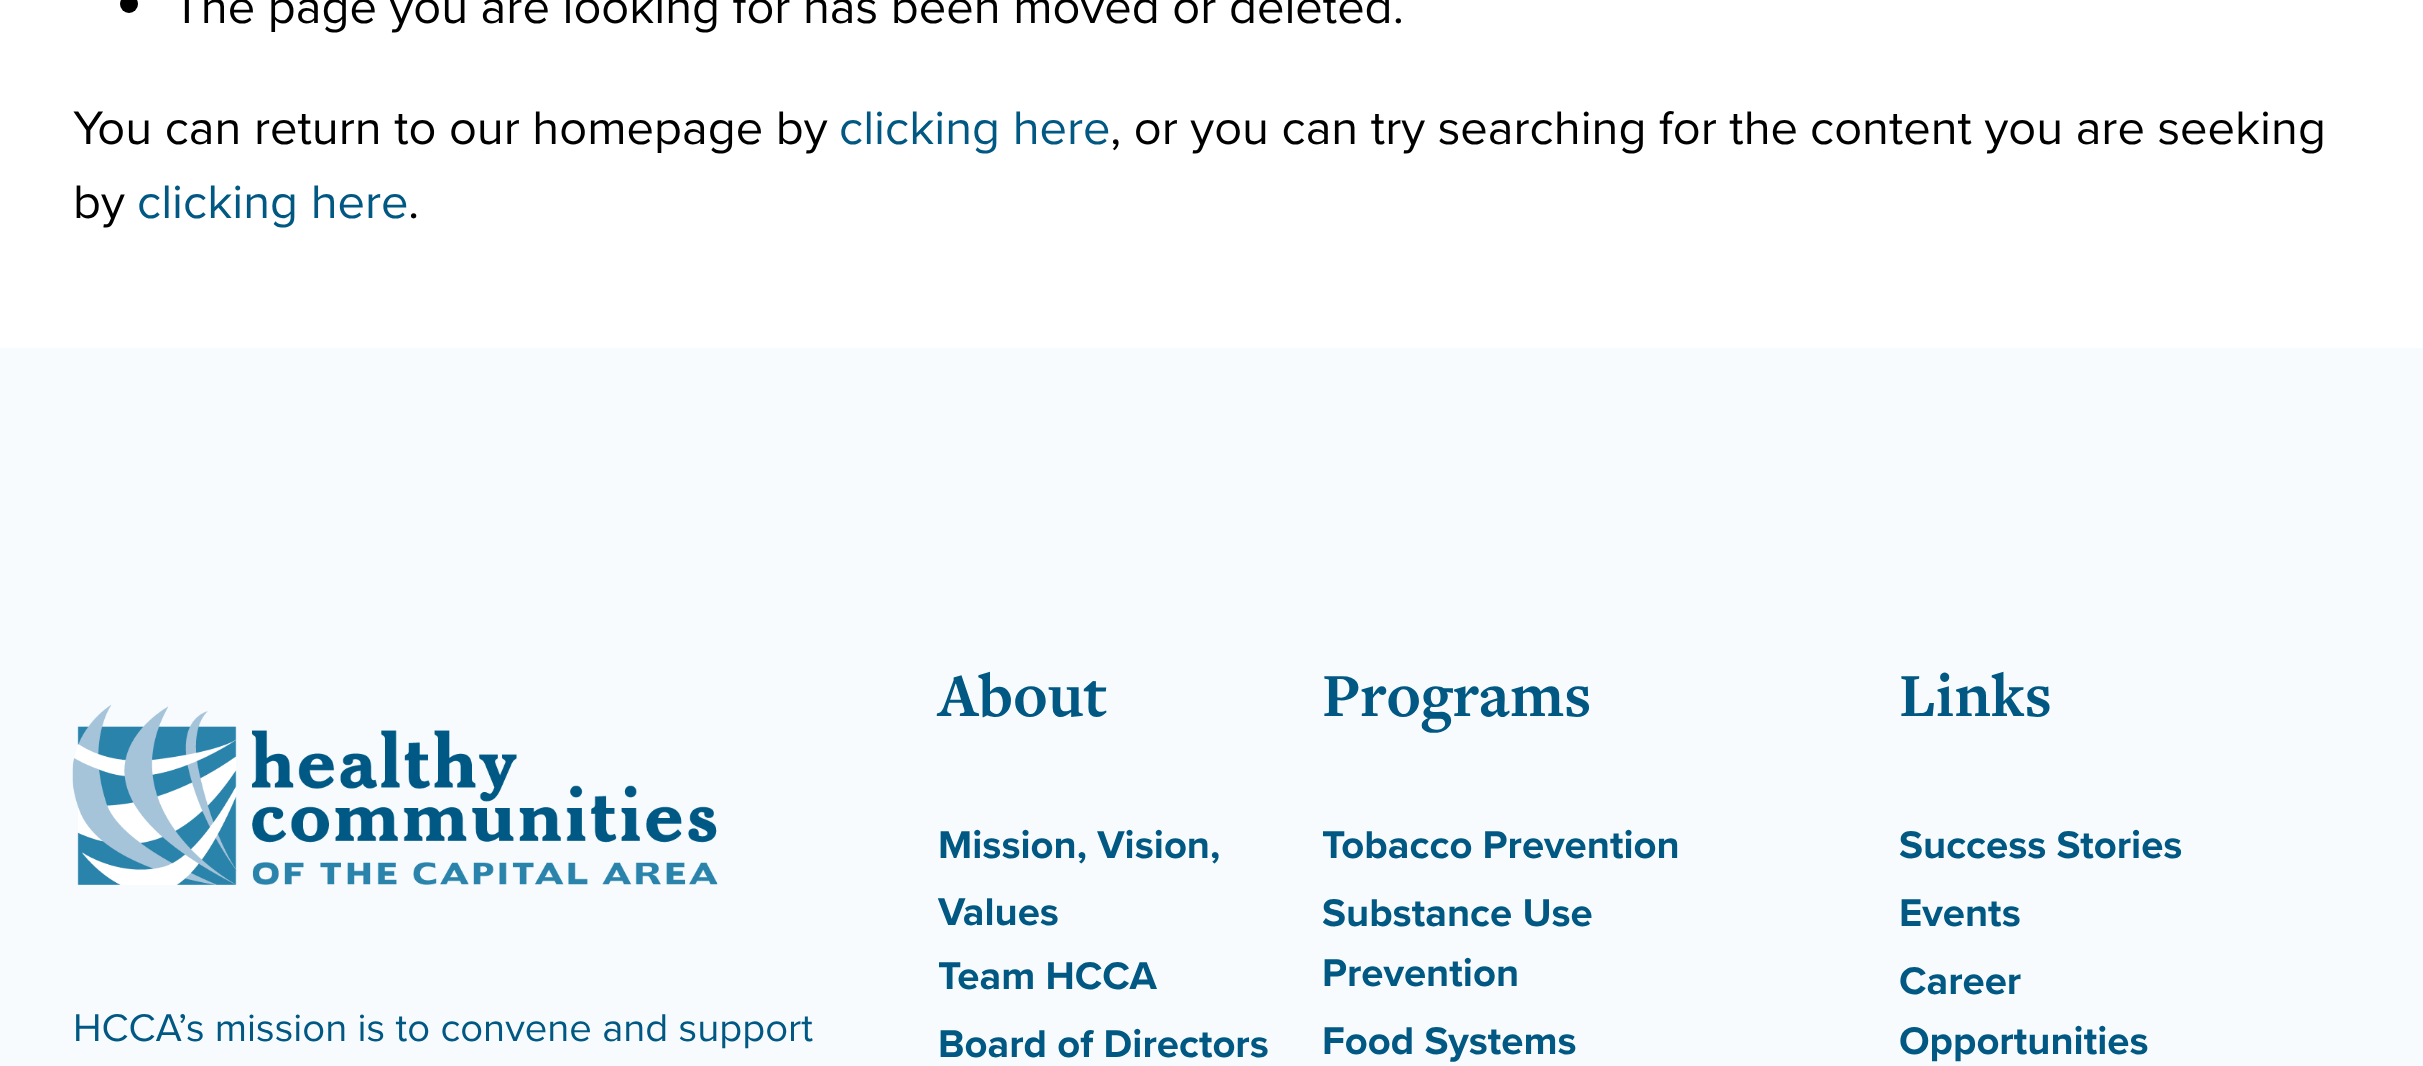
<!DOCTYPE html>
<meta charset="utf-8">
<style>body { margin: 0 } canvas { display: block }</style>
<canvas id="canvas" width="2423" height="1066"></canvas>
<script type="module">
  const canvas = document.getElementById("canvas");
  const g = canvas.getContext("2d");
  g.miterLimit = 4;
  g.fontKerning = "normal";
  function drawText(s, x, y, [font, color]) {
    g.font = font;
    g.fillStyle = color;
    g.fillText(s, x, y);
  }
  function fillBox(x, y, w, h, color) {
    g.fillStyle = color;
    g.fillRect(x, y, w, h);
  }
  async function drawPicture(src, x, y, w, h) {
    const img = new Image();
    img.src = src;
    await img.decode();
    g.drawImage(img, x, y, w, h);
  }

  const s1 = ["48.75px Proxima Nova", "#000000"];
  const s2 = ["48.75px Proxima Nova", "#005883"];
  const s3 = ["bold 63.5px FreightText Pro", "#005883"];
  const s4 = ["bold 40px Proxima Nova", "#005883"];
  const s5 = ["40px Proxima Nova", "#005883"];

  fillBox(0, 0, 2423, 1066, "#FFFFFF");
  g.fillStyle = "#000000";
  g.beginPath();
  g.arc(129, 4, 9, 0, Math.PI * 2);
  g.fill();
  drawText("The page you are looking for has been moved or deleted.", 173, 23, s1);
  drawText("You can return to our homepage by", 73, 144, s1);
  drawText("clicking here", 839, 144, s2);
  drawText(", or you can try searching for the", 1110, 144, s1);
  drawText("content you are seeking", 1810, 144, s1);
  drawText("by", 73, 218, s1);
  drawText("clicking here", 137, 218, s2);
  drawText(".", 408, 218, s1);
  fillBox(0, 348, 2423, 718, "#F7FBFE");
  await drawPicture("pic1.png", 72, 705, 646, 180);
  drawText("About", 938, 716, s3);
  drawText("Mission, Vision,", 938, 858, s4);
  drawText("Values", 938, 925, s4);
  drawText("Team HCCA", 938, 989, s4);
  drawText("Board of Directors", 938, 1057, s4);
  drawText("Programs", 1322, 716, s3);
  drawText("Tobacco Prevention", 1322, 858, s4);
  drawText("Substance Use", 1322, 926, s4);
  drawText("Prevention", 1322, 986, s4);
  drawText("Food Systems", 1322, 1054, s4);
  drawText("Links", 1899, 716, s3);
  drawText("Success Stories", 1899, 858, s4);
  drawText("Events", 1899, 926, s4);
  drawText("Career", 1899, 994, s4);
  drawText("Opportunities", 1899, 1054, s4);
  drawText("HCCA’s mission is to convene and support", 73, 1041, s5);
</script>
